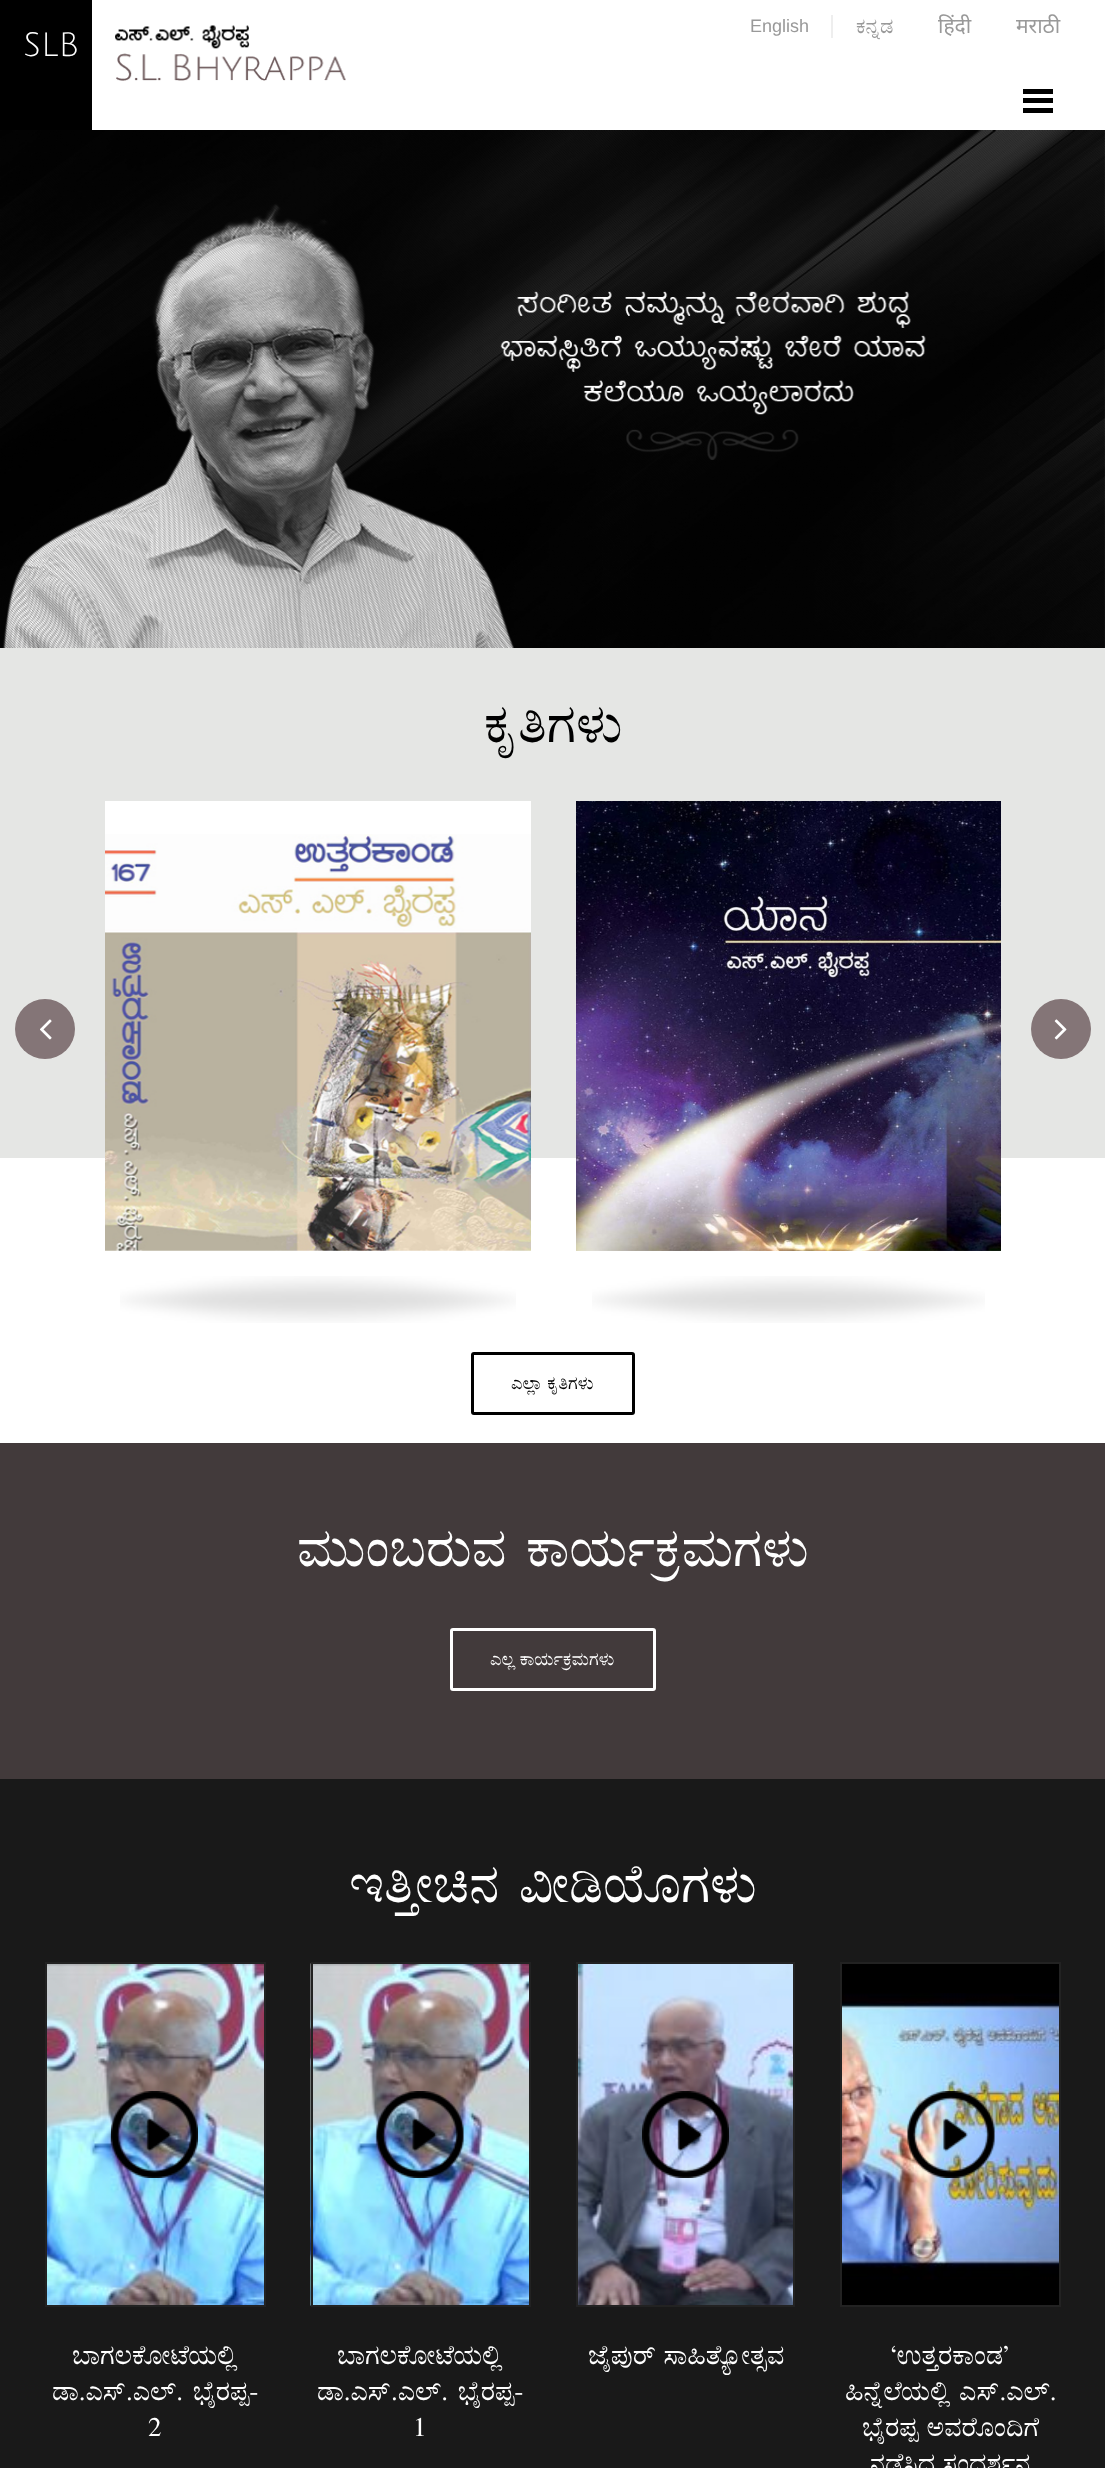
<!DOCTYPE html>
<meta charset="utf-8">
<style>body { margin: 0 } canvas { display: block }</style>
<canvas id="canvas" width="1105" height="2468"></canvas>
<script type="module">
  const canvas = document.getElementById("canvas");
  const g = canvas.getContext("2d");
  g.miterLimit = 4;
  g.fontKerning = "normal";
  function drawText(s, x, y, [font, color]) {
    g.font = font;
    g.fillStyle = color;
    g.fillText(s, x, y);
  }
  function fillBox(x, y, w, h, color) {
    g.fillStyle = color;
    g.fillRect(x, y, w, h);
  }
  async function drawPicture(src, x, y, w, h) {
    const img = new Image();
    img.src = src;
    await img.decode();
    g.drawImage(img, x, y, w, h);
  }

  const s1 = ["33px Julius Sans One", "#FFFFFF"];
  const s2 = ["18px Liberation Sans", "#999999"];
  const s3 = ["21px FreeSerif", "#999999"];
  const s4 = ["21px Noto Sans", "#999999"];
  const s5 = ["54px FreeSerif", "#000000"];
  const s6 = ["18px FreeSerif", "#000000"];
  const s7 = ["54px FreeSerif", "#FFFFFF"];
  const s8 = ["18px FreeSerif", "#FFFFFF"];
  const s9 = ["27px FreeSerif", "#FFFFFF"];

  fillBox(0, 0, 1105, 2468, "#FFFFFF");
  fillBox(0, 0, 92, 130, "#000000");
  drawText("SLB", 23, 56, s1);
  await drawPicture("pic1.png", 115, 25, 231, 56);
  fillBox(831, 15, 2, 23, "#EEEEEE");
  drawText("English", 750, 32, s2);
  drawText("ಕನ್ನಡ", 856, 33, s3);
  drawText("हिंदी", 938, 33, s4);
  drawText("मराठी", 1016, 33, s4);
  fillBox(1023, 89, 30, 5, "#000000");
  fillBox(1023, 98, 30, 5, "#000000");
  fillBox(1023, 108, 30, 5, "#000000");
  await drawPicture("pic2.png", 0, 130, 1105, 518);
  fillBox(0, 648, 1105, 510, "#E5E6E4");
  drawText("ಕೃತಿಗಳು", 484, 742, s5);
  g.fillStyle = "#847577";
  g.beginPath();
  g.arc(45, 1029, 30, 0, Math.PI * 2);
  g.fill();
  await drawPicture("pic3.png", 40, 1019, 12, 21);
  fillBox(105, 801, 426, 357, "#FFFFFF");
  await drawPicture("pic4.png", 105, 834, 426, 417);
  await drawPicture("pic5.png", 120, 1276, 396, 47);
  await drawPicture("pic6.png", 576, 801, 425, 450);
  await drawPicture("pic7.png", 592, 1276, 393, 47);
  g.fillStyle = "#847577";
  g.beginPath();
  g.arc(1061, 1029, 30, 0, Math.PI * 2);
  g.fill();
  await drawPicture("pic8.png", 1054, 1019, 13, 21);
  g.beginPath();
  g.roundRect(472.5, 1353.5, 161, 60, 1.5);
  g.strokeStyle = "#000000";
  g.lineWidth = 3;
  g.stroke();
  drawText("ಎಲ್ಲಾ ಕೃತಿಗಳು", 511, 1389, s6);
  fillBox(0, 1443, 1105, 336, "#423A3B");
  g.wordSpacing = "6px";
  drawText("ಮುಂಬರುವ ಕಾರ್ಯಕ್ರಮಗಳು", 297, 1566, s7);
  g.beginPath();
  g.roundRect(451.5, 1629.5, 203, 60, 1.5);
  g.strokeStyle = "#FFFFFF";
  g.stroke();
  g.wordSpacing = "0px";
  drawText("ಎಲ್ಲ ಕಾರ್ಯಕ್ರಮಗಳು", 490, 1665, s8);
  fillBox(0, 1779, 1105, 689, "#191919");
  g.wordSpacing = "6px";
  drawText("ಇತ್ತೀಚಿನ ವೀಡಿಯೊಗಳು", 349, 1902, s7);
  await drawPicture("pic9.png", 47, 1964, 217, 341);
  g.strokeStyle = "#222222";
  g.lineWidth = 2;
  g.strokeRect(46, 1963, 219, 343);
  await drawPicture("pic10.png", 111, 2091, 87, 87);
  g.wordSpacing = "0px";
  drawText("ಬಾಗಲಕೋಟೆಯಲ್ಲಿ", 72, 2364, s9);
  g.wordSpacing = "3px";
  drawText("ಡಾ.ಎಸ್‌.ಎಲ್‌. ಭೈರಪ್ಪ-", 52, 2400, s9);
  g.wordSpacing = "0px";
  drawText("2", 148, 2436, s9);
  await drawPicture("pic11.png", 310, 1963, 219, 343);
  g.strokeRect(312, 1963, 218, 343);
  await drawPicture("pic12.png", 376, 2091, 88, 87);
  drawText("ಬಾಗಲಕೋಟೆಯಲ್ಲಿ", 337, 2364, s9);
  g.wordSpacing = "3px";
  drawText("ಡಾ.ಎಸ್‌.ಎಲ್‌. ಭೈರಪ್ಪ-", 317, 2400, s9);
  g.wordSpacing = "0px";
  drawText("1", 413, 2436, s9);
  await drawPicture("pic13.png", 578, 1964, 215, 341);
  g.strokeRect(577, 1963, 217, 343);
  await drawPicture("pic14.png", 642, 2091, 87, 87);
  g.wordSpacing = "1px";
  drawText("ಜೈಪುರ್ ಸಾಹಿತ್ಯೋತ್ಸವ", 588, 2364, s9);
  fillBox(842, 1964, 217, 341, "#000000");
  await drawPicture("pic15.png", 842, 1993, 217, 287);
  g.strokeRect(841, 1963, 219, 343);
  await drawPicture("pic16.png", 907, 2091, 88, 87);
  g.wordSpacing = "0px";
  drawText("‘ಉತ್ತರಕಾಂಡ’", 891, 2364, s9);
  g.wordSpacing = "2px";
  drawText("ಹಿನ್ನೆಲೆಯಲ್ಲಿ ಎಸ್‌.ಎಲ್‌.", 845, 2400, s9);
  g.wordSpacing = "1px";
  drawText("ಭೈರಪ್ಪ ಅವರೊಂದಿಗೆ", 862, 2436, s9);
  drawText("ನಡೆಸಿದ ಸಂದರ್ಶನ", 870, 2472, s9);
</script>
